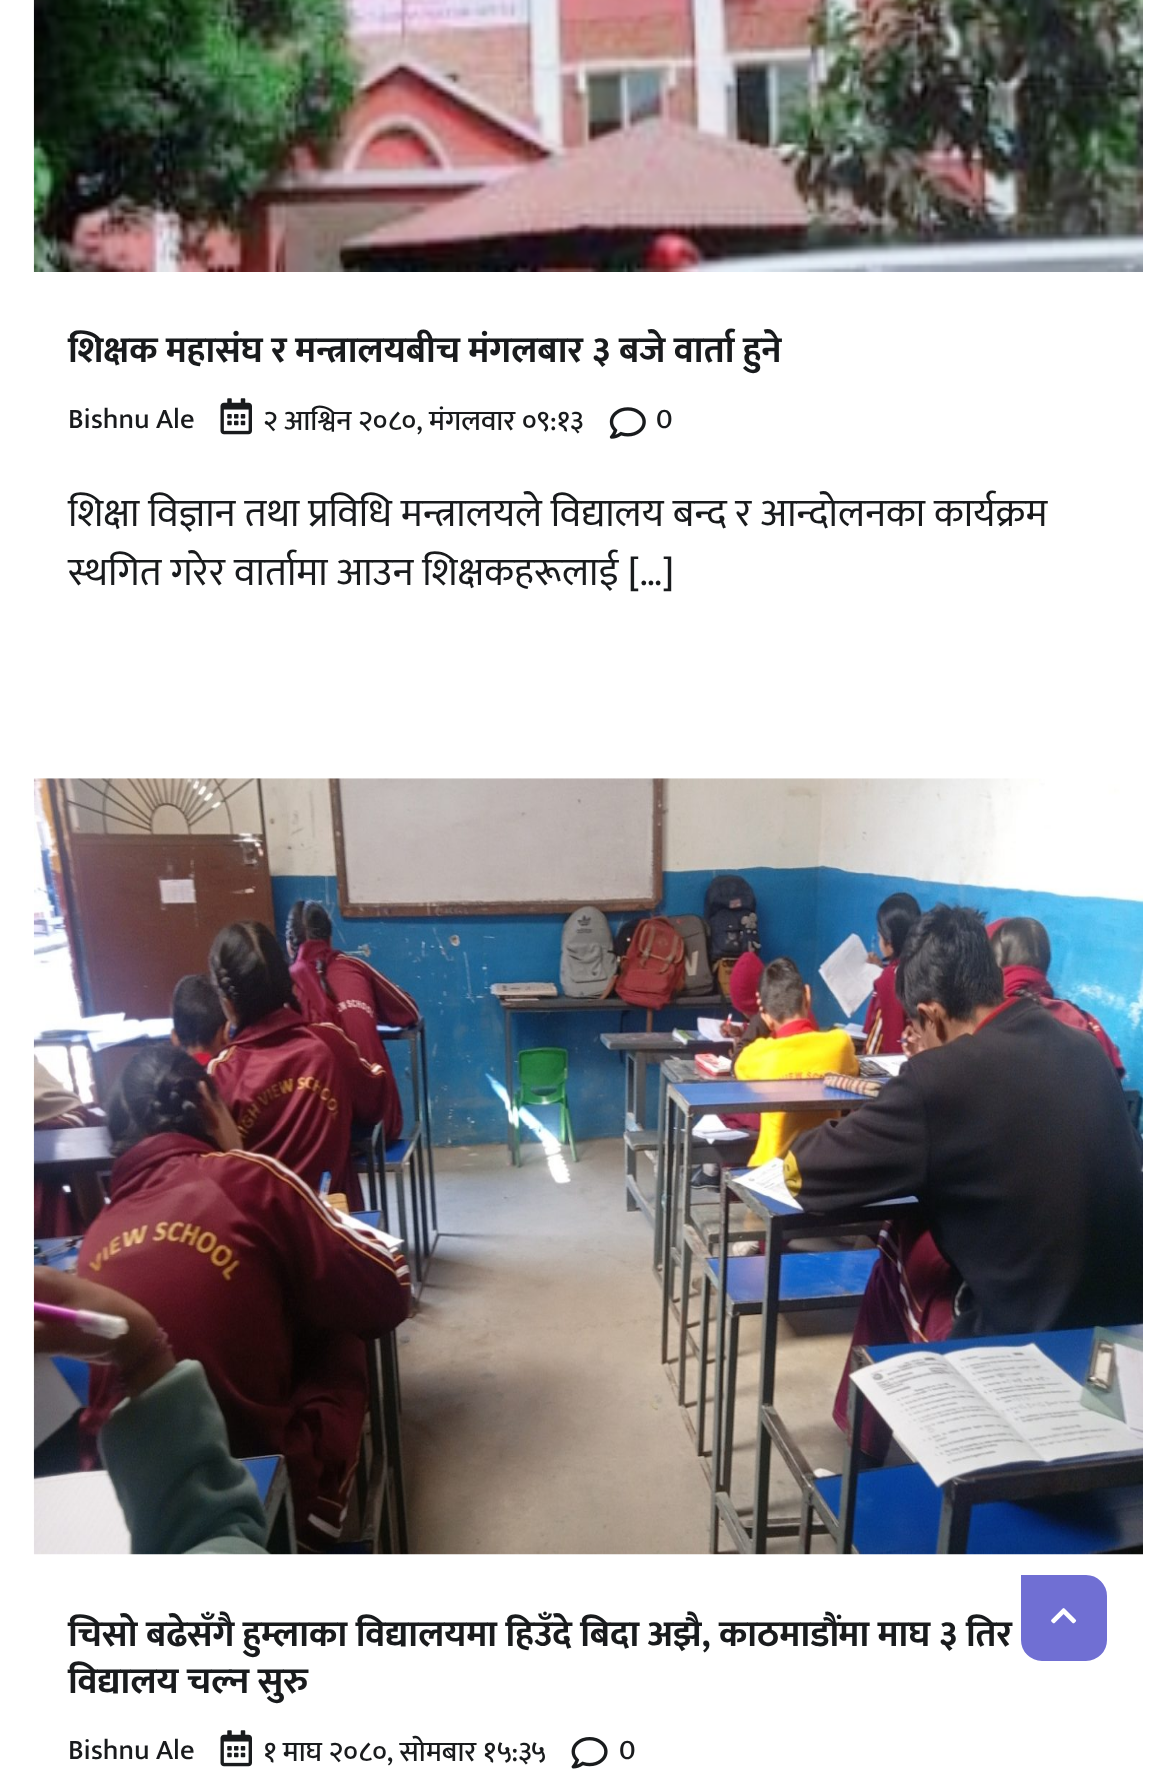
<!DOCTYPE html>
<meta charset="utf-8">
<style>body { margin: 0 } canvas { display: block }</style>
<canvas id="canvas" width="1176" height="1780"></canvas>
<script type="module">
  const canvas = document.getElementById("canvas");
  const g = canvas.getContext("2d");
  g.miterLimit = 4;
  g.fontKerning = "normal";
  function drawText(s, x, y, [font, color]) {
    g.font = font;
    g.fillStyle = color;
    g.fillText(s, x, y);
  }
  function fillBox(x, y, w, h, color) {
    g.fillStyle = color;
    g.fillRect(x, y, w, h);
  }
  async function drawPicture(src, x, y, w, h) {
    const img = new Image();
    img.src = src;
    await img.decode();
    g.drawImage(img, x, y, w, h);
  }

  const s1 = ["bold 36.75px Mukta", "#191B1D"];
  const s2 = ["500 28.5px Mukta", "#191B1D"];
  const s3 = ["39.6px Mukta", "#191B1D"];

  fillBox(0, 0, 1176, 1780, "#FFFFFF");
  await drawPicture("pic1.png", 33, 0, 1110, 272);
  drawText("शिक्षक महासंघ र मन्त्रालयबीच मंगलबार ३ बजे वार्ता हुने", 68, 362, s1);
  drawText("Bishnu Ale", 68, 428, s2);
  await drawPicture("pic2.png", 220, 398, 32, 37);
  drawText("२ आश्विन २०८०, मंगलवार ०९:१३", 263, 430, s2);
  await drawPicture("pic3.png", 609, 407, 37, 32);
  drawText("0", 656, 428, s2);
  drawText("शिक्षा विज्ञान तथा प्रविधि मन्त्रालयले विद्यालय बन्द र आन्दाेलनका कार्यक्रम", 68, 526, s3);
  drawText("स्थगित गरेर वार्तामा आउन शिक्षकहरूलाई […]", 68, 585, s3);
  await drawPicture("pic4.png", 33, 778, 1110, 777);
  drawText("चिसो बढेसँगै हुम्लाका विद्यालयमा हिउँदे बिदा अझै, काठमाडौंमा माघ ३ तिर", 68, 1646, s1);
  drawText("विद्यालय चल्न सुरु", 68, 1693, s1);
  drawText("Bishnu Ale", 68, 1759, s2);
  await drawPicture("pic2.png", 220, 1730, 32, 37);
  drawText("१ माघ २०८०, सोमबार १५:३५", 263, 1761, s2);
  await drawPicture("pic5.png", 571, 1737, 37, 32);
  drawText("0", 619, 1759, s2);
  g.fillStyle = "#706FD3";
  g.beginPath();
  g.roundRect(1020, 1574, 88, 88, [0, 22, 22, 22]);
  g.fill();
  g.strokeStyle = "#FFFFFF";
  g.lineWidth = 2;
  g.stroke();
  await drawPicture("pic6.png", 1051, 1608, 26, 16);
</script>
